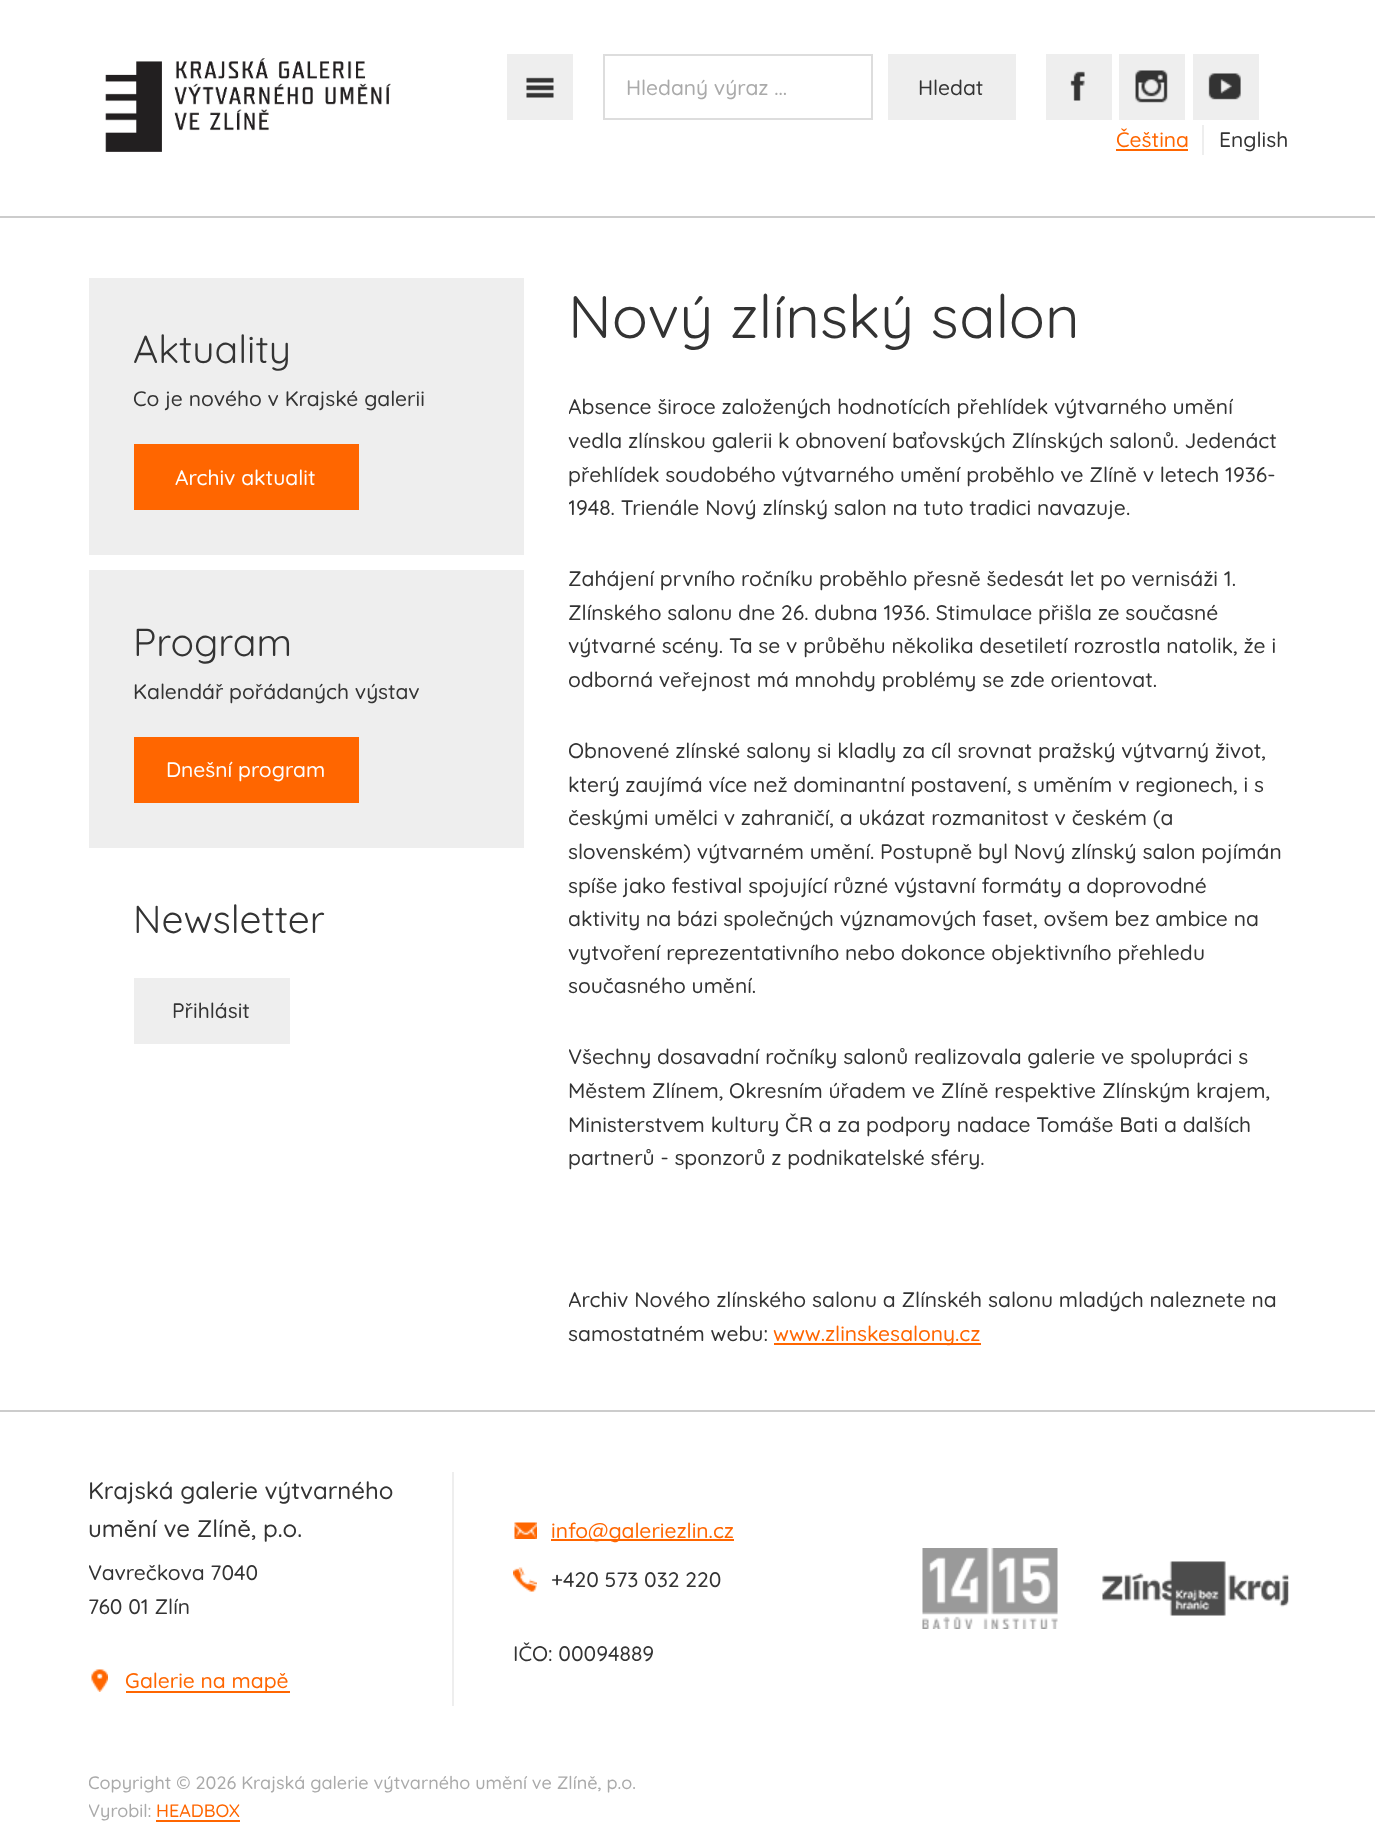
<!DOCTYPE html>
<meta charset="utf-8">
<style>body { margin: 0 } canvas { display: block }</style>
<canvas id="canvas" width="1375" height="1839"></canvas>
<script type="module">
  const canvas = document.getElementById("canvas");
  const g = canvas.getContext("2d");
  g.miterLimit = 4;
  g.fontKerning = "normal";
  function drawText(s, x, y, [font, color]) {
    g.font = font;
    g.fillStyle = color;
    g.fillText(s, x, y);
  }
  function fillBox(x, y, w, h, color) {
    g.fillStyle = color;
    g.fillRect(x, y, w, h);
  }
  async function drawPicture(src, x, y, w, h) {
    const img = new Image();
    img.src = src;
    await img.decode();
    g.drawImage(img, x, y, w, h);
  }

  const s1 = ["500 21px Quicksand", "#AAAAAA"];
  const s2 = ["500 21px Quicksand", "#333333"];
  const s3 = ["500 21px Quicksand", "#FF6600"];
  const s4 = ["39px Quicksand", "#333333"];
  const s5 = ["500 21px Quicksand", "#FFFFFF"];
  const s6 = ["60px Quicksand", "#333333"];
  const s7 = ["500 24px Quicksand", "#333333"];
  const s8 = ["500 18px Quicksand", "#AAAAAA"];
  const s9 = ["500 18px Quicksand", "#FF6600"];

  fillBox(0, 0, 1375, 1839, "#FFFFFF");
  fillBox(0, 216, 1375, 2, "#CCCCCC");
  await drawPicture("pic1.png", 105, 58, 286, 94);
  fillBox(507, 54, 66, 66, "#EEEEEE");
  await drawPicture("pic2.png", 526, 77, 28, 21);
  g.strokeStyle = "#DDDDDD";
  g.lineWidth = 2;
  g.strokeRect(604, 55, 268, 64);
  drawText("Hledaný výraz ...", 626, 95, s1);
  fillBox(888, 54, 128, 66, "#EEEEEE");
  drawText("Hledat", 918, 95, s2);
  fillBox(1046, 54, 66, 66, "#EEEEEE");
  await drawPicture("pic3.png", 1070, 71, 15, 30);
  fillBox(1119, 54, 66, 66, "#EEEEEE");
  await drawPicture("pic4.png", 1135, 70, 33, 33);
  fillBox(1193, 54, 66, 66, "#EEEEEE");
  await drawPicture("pic5.png", 1208, 73, 33, 27);
  drawText("Čeština", 1116, 147, s3);
  fillBox(1116, 149, 72, 2, "#FF6600");
  fillBox(1202, 125, 2, 30, "#EEEEEE");
  drawText("English", 1219, 147, s2);
  fillBox(89, 278, 435, 277, "#EEEEEE");
  drawText("Aktuality", 133, 363, s4);
  drawText("Co je nového v Krajské galerii", 133, 406, s2);
  fillBox(134, 444, 225, 66, "#FF6600");
  drawText("Archiv aktualit", 175, 485, s5);
  fillBox(89, 570, 435, 278, "#EEEEEE");
  drawText("Program", 133, 656, s4);
  drawText("Kalendář pořádaných výstav", 133, 699, s2);
  fillBox(134, 737, 225, 66, "#FF6600");
  drawText("Dnešní program", 166, 777, s5);
  drawText("Newsletter", 133, 933, s4);
  fillBox(134, 978, 156, 66, "#EEEEEE");
  drawText("Přihlásit", 172, 1018, s2);
  drawText("Nový zlínský salon", 568, 338, s6);
  g.save();
  g.beginPath();
  g.rect(569, 390, 720, 135);
  g.clip();
  drawText("Absence široce založených hodnotících přehlídek výtvarného umění", 568, 414, s2);
  g.restore();
  drawText("vedla zlínskou galerii k obnovení baťovských Zlínských salonů. Jedenáct", 568, 448, s2);
  drawText("přehlídek soudobého výtvarného umění proběhlo ve Zlíně v letech 1936-", 568, 482, s2);
  g.save();
  g.beginPath();
  g.rect(569, 390, 720, 135);
  g.clip();
  drawText("1948. Trienále Nový zlínský salon na tuto tradici navazuje.", 568, 515, s2);
  g.restore();
  drawText("Zahájení prvního ročníku proběhlo přesně šedesát let po vernisáži 1.", 568, 586, s2);
  drawText("Zlínského salonu dne 26. dubna 1936. Stimulace přišla ze současné", 568, 620, s2);
  drawText("výtvarné scény. Ta se v průběhu několika desetiletí rozrostla natolik, že i", 568, 653, s2);
  g.save();
  g.beginPath();
  g.rect(569, 563, 720, 133);
  g.clip();
  drawText("odborná veřejnost má mnohdy problémy se zde orientovat.", 568, 687, s2);
  g.restore();
  g.save();
  g.beginPath();
  g.rect(569, 734, 720, 270);
  g.clip();
  drawText("Obnovené zlínské salony si kladly za cíl srovnat pražský výtvarný život,", 568, 758, s2);
  g.restore();
  drawText("který zaujímá více než dominantní postavení, s uměním v regionech, i s", 568, 792, s2);
  g.save();
  g.beginPath();
  g.rect(569, 734, 720, 270);
  g.clip();
  drawText("českými umělci v zahraničí, a ukázat rozmanitost v českém (a", 568, 825, s2);
  g.restore();
  drawText("slovenském) výtvarném umění. Postupně byl Nový zlínský salon pojímán", 568, 859, s2);
  drawText("spíše jako festival spojující různé výstavní formáty a doprovodné", 568, 893, s2);
  g.save();
  g.beginPath();
  g.rect(569, 734, 720, 270);
  g.clip();
  drawText("aktivity na bázi společných významových faset, ovšem bez ambice na", 568, 926, s2);
  g.restore();
  drawText("vytvoření reprezentativního nebo dokonce objektivního přehledu", 568, 960, s2);
  drawText("současného umění.", 568, 993, s2);
  g.save();
  g.beginPath();
  g.rect(569, 1041, 720, 134);
  g.clip();
  drawText("Všechny dosavadní ročníky salonů realizovala galerie ve spolupráci s", 568, 1064, s2);
  g.restore();
  drawText("Městem Zlínem, Okresním úřadem ve Zlíně respektive Zlínským krajem,", 568, 1098, s2);
  drawText("Ministerstvem kultury ČR a za podpory nadace Tomáše Bati a dalších", 568, 1132, s2);
  drawText("partnerů - sponzorů z podnikatelské sféry.", 568, 1165, s2);
  g.save();
  g.beginPath();
  g.rect(569, 1284, 720, 66);
  g.clip();
  drawText("Archiv Nového zlínského salonu a Zlínskéh salonu mladých naleznete na", 568, 1307, s2);
  g.restore();
  drawText("samostatném webu:", 568, 1341, s2);
  fillBox(774, 1343, 207, 2, "#FF6600");
  drawText("www.zlinskesalony.cz", 773, 1341, s3);
  fillBox(0, 1410, 1375, 2, "#CCCCCC");
  drawText("Krajská galerie výtvarného", 88, 1499, s7);
  drawText("umění ve Zlíně, p.o.", 88, 1537, s7);
  fillBox(452, 1472, 2, 234, "#EEEEEE");
  g.save();
  g.beginPath();
  g.rect(89, 1472, 424, 234);
  g.clip();
  drawText("Vavrečkova 7040", 88, 1580, s2);
  g.restore();
  drawText("760 01 Zlín", 88, 1614, s2);
  await drawPicture("pic6.png", 91, 1669, 17, 23);
  fillBox(126, 1691, 164, 2, "#FF6600");
  drawText("Galerie na mapě", 125, 1688, s3);
  await drawPicture("pic7.png", 514, 1522, 23, 17);
  fillBox(551, 1539, 183, 2, "#FF6600");
  drawText("info@galeriezlin.cz", 551, 1538, s3);
  await drawPicture("pic8.png", 513, 1567, 24, 25);
  drawText("+420 573 032 220", 551, 1587, s2);
  drawText("IČO: 00094889", 513, 1661, s2);
  await drawPicture("pic9.png", 922, 1548, 136, 81);
  await drawPicture("pic10.png", 1102, 1561, 187, 55);
  g.save();
  g.beginPath();
  g.rect(89, 1412, 1200, 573);
  g.clip();
  drawText("Copyright © 2026 Krajská galerie výtvarného umění ve Zlíně, p.o.", 88, 1789, s8);
  g.restore();
  g.save();
  g.beginPath();
  g.rect(89, 1797, 1200, 29);
  g.clip();
  drawText("Vyrobil:", 88, 1817, s8);
  g.restore();
  drawText("HEADBOX", 156, 1817, s9);
  fillBox(156, 1820, 84, 2, "#FF6600");
</script>
